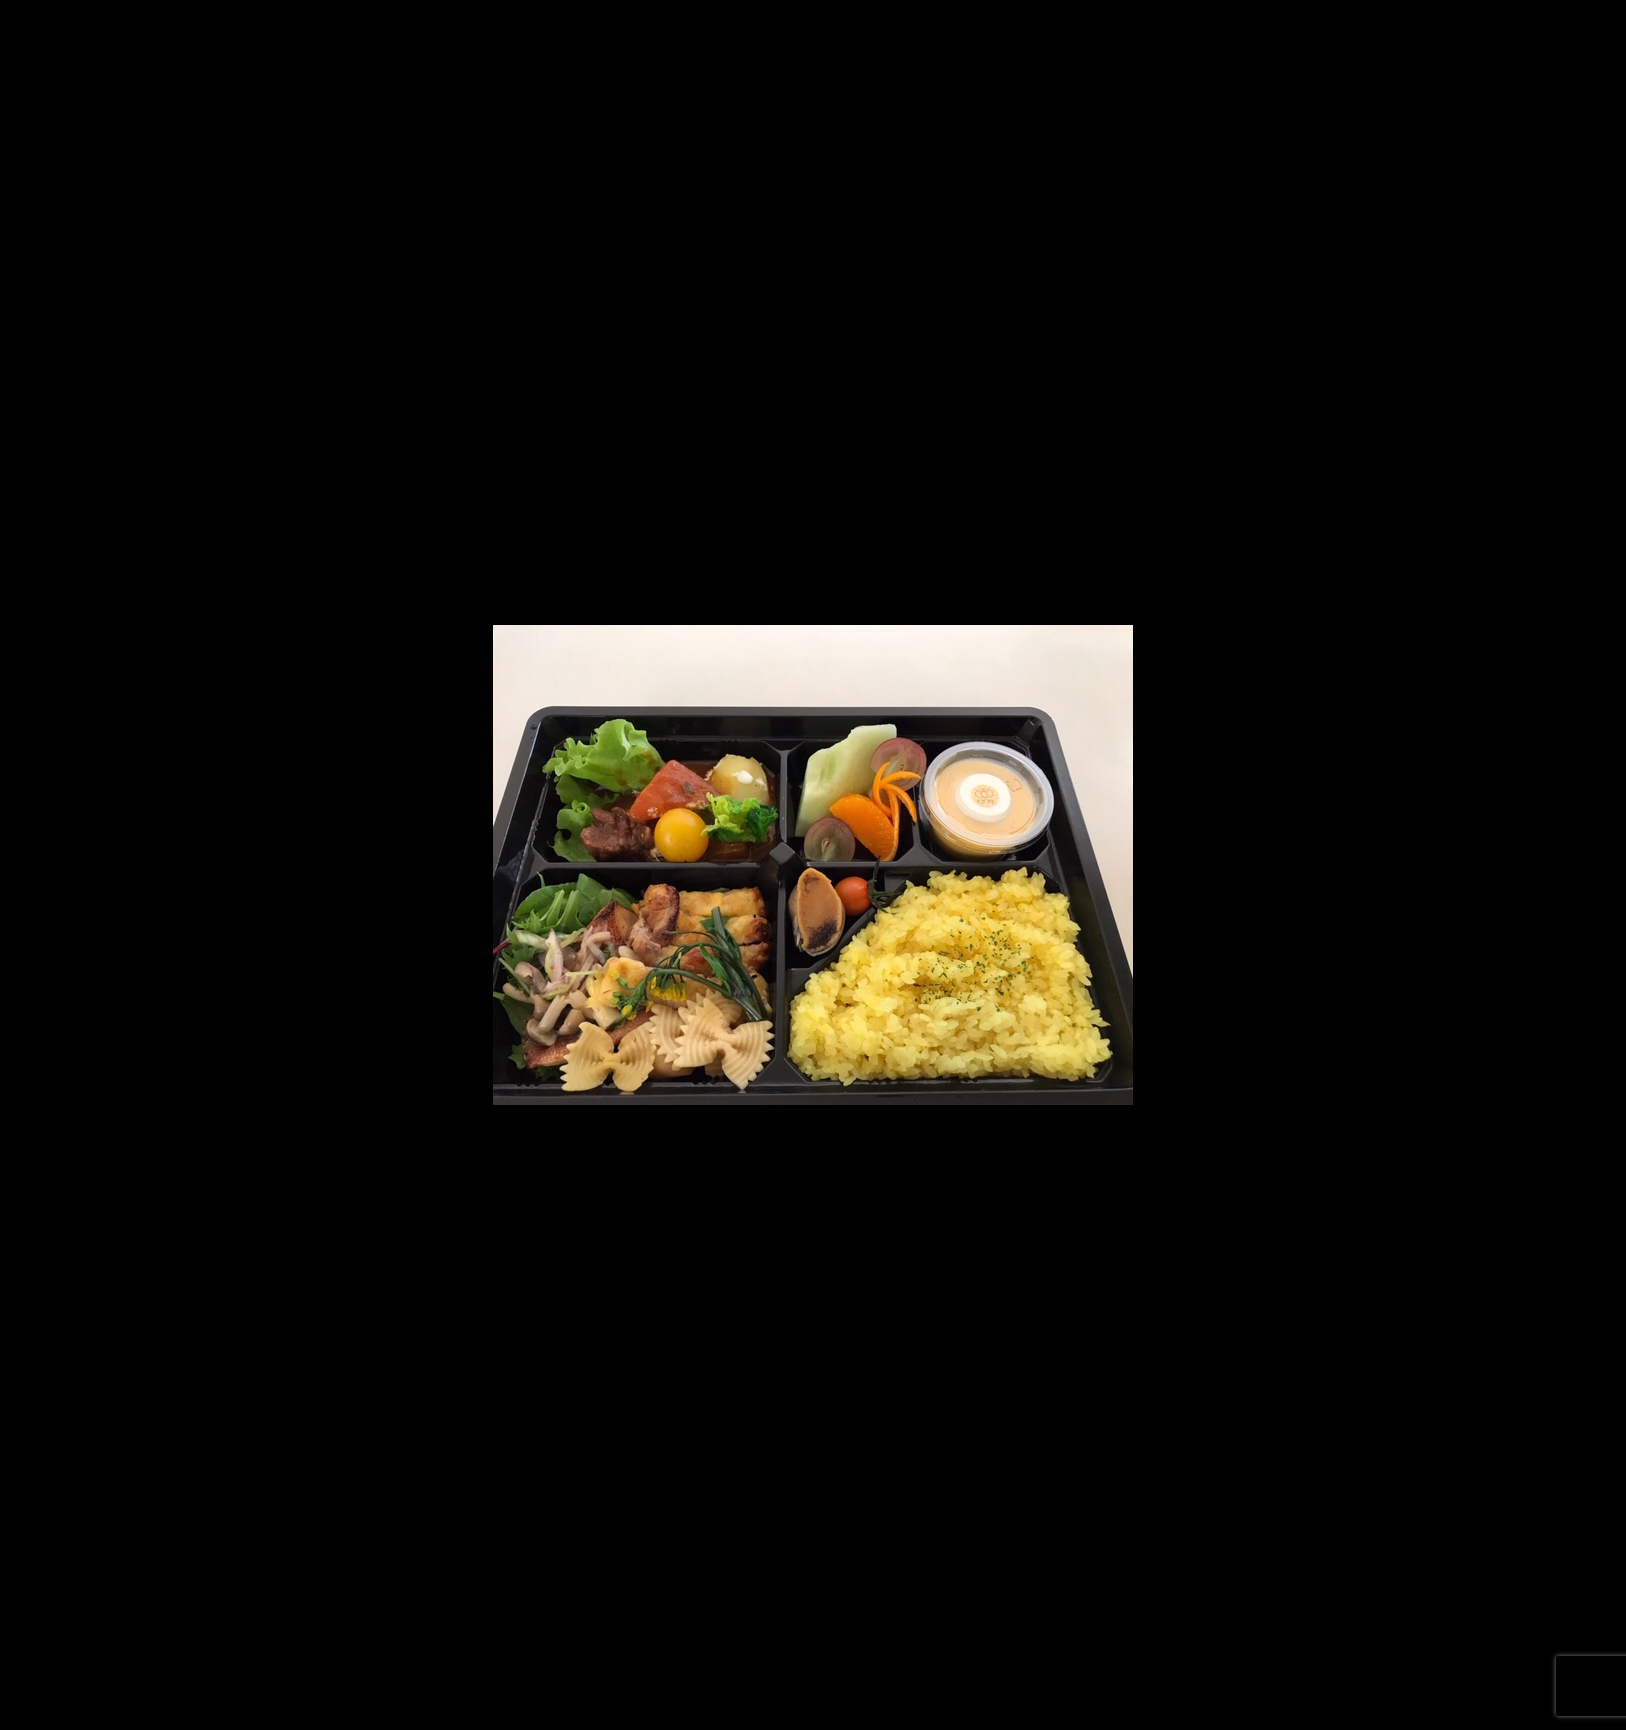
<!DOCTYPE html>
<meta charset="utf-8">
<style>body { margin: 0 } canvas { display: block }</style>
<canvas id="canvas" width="1626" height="1730"></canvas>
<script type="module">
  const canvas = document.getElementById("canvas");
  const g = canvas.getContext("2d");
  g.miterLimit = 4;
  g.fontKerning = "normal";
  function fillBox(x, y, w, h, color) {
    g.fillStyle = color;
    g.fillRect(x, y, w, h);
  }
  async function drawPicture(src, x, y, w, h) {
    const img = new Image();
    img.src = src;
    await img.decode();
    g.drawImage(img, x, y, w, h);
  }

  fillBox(0, 0, 1626, 1730, "#000000");
  await drawPicture("pic1.png", 493, 625, 640, 480);
  g.save();
  g.beginPath();
  g.moveTo(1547, 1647);
  g.lineTo(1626, 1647);
  g.lineTo(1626, 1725);
  g.lineTo(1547, 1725);
  g.closePath();
  g.moveTo(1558, 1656);
  g.lineTo(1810, 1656);
  g.bezierCurveTo(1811, 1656, 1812, 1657, 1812, 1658);
  g.lineTo(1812, 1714);
  g.bezierCurveTo(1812, 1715, 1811, 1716, 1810, 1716);
  g.lineTo(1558, 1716);
  g.bezierCurveTo(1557, 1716, 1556, 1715, 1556, 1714);
  g.lineTo(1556, 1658);
  g.bezierCurveTo(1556, 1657, 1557, 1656, 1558, 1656);
  g.closePath();
  g.clip("evenodd");
  g.fillStyle = "#808080";
  g.filter = "blur(2.5px)";
  g.beginPath();
  g.roundRect(1556, 1656, 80, 60, 2);
  g.fill();
  g.filter = "none";
  g.restore();
</script>
